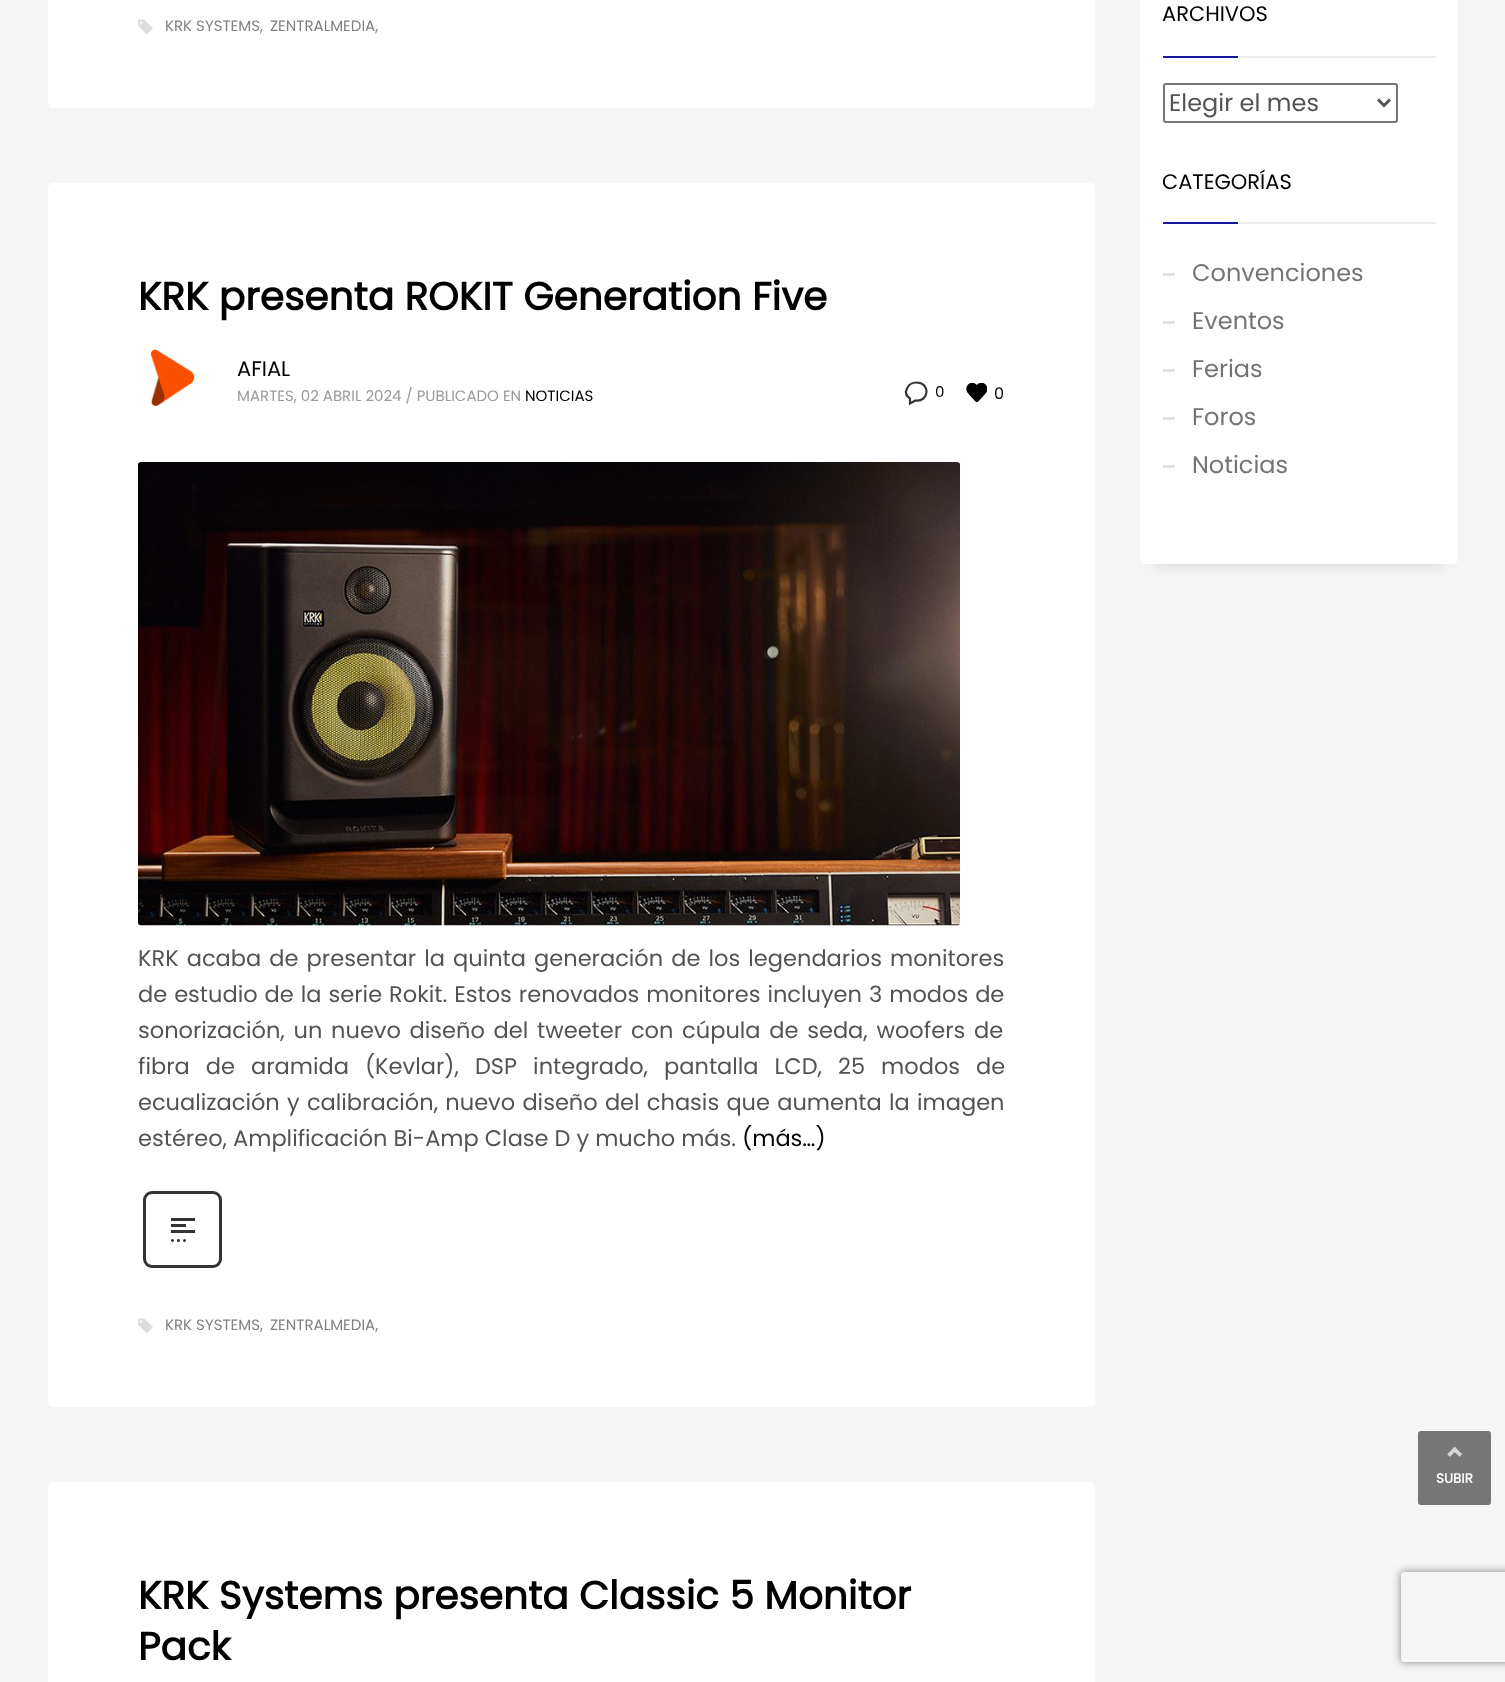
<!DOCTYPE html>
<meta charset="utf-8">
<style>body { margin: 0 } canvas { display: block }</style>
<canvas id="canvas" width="1505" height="1682"></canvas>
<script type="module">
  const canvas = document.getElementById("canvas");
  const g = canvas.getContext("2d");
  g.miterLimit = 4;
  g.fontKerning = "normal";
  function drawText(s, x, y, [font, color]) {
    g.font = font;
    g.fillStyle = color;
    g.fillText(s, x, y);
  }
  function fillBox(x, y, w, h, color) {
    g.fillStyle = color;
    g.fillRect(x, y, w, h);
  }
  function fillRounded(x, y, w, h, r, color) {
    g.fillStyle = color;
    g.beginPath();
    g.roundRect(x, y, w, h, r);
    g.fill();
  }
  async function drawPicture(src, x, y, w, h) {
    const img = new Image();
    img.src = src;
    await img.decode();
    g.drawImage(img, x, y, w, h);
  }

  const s1 = ["15px Poppins", "#808080"];
  const s2 = ["bold 39px Poppins", "#000000"];
  const s3 = ["21px Poppins", "#000000"];
  const s4 = ["15px Poppins", "#9A9A9A"];
  const s5 = ["15px Poppins", "#000000"];
  const s6 = ["16px Poppins", "#000000"];
  const s7 = ["22.5px Poppins", "#535353"];
  const s8 = ["22.5px Poppins", "#000000"];
  const s9 = ["24px Poppins", "#535353"];
  const s10 = ["24px Poppins", "#747474"];
  const s11 = ["bold 13.5px Poppins", "#FCFCFC"];

  fillBox(0, 0, 1505, 1682, "#F5F5F5");
  fillRounded(48, -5, 1047, 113, 5, "#FFFFFF");
  await drawPicture("pic1.png", 138, 19, 15, 16);
  drawText("KRK SYSTEMS,", 165, 31, s1);
  drawText("ZENTRALMEDIA,", 270, 31, s1);
  fillRounded(48, 183, 1047, 1224, 5, "#FFFFFF");
  drawText("KRK presenta ROKIT Generation Five", 138, 310, s2);
  await drawPicture("pic2.png", 150, 349, 45, 58);
  drawText("AFIAL", 237, 376, s3);
  drawText("MARTES, 02 ABRIL 2024 / PUBLICADO EN", 237, 401, s4);
  drawText("NOTICIAS", 525, 401, s5);
  g.beginPath();
  g.moveTo(916.5, 382.5);
  g.bezierCurveTo(907.5, 382.5, 902, 393.5, 910, 398.5);
  g.lineTo(910, 403.5);
  g.lineTo(915.5, 400.5);
  g.bezierCurveTo(929.5, 402, 930.5, 382.5, 916.5, 382.5);
  g.closePath();
  g.strokeStyle = "#343434";
  g.lineWidth = 2.2;
  g.stroke();
  drawText("0", 935, 397, s5);
  await drawPicture("pic3.png", 966, 383, 21, 19);
  drawText("0", 994, 399, s6);
  await drawPicture("pic4.png", 138, 462, 822, 464);
  g.wordSpacing = "2.1px";
  drawText("KRK acaba de presentar la quinta generación de los legendarios monitores", 138, 966, s7);
  g.wordSpacing = "1px";
  drawText("de estudio de la serie Rokit. Estos renovados monitores incluyen 3 modos de", 138, 1002, s7);
  g.wordSpacing = "2.75px";
  drawText("sonorización, un nuevo diseño del tweeter con cúpula de seda, woofers de", 138, 1038, s7);
  g.wordSpacing = "10px";
  drawText("fibra de aramida (Kevlar), DSP integrado, pantalla LCD, 25 modos de", 138, 1074, s7);
  g.wordSpacing = "1.25px";
  drawText("ecualización y calibración, nuevo diseño del chasis que aumenta la imagen", 138, 1110, s7);
  g.wordSpacing = "0px";
  drawText("estéreo, Amplificación Bi-Amp Clase D y mucho más.", 138, 1146, s7);
  drawText("(más…)", 742, 1146, s8);
  fillBox(171, 1218, 24, 3, "#333333");
  fillBox(171, 1224, 15, 3, "#333333");
  fillBox(171, 1230, 24, 3, "#333333");
  g.beginPath();
  g.moveTo(172.5, 1239);
  g.bezierCurveTo(174.5, 1239, 174.5, 1242, 172.5, 1242);
  g.bezierCurveTo(170.5, 1242, 170.5, 1239, 172.5, 1239);
  g.closePath();
  g.moveTo(180, 1240.5);
  g.bezierCurveTo(180, 1242.5, 177, 1242.5, 177, 1240.5);
  g.bezierCurveTo(177, 1238.5, 180, 1238.5, 180, 1240.5);
  g.closePath();
  g.moveTo(184.5, 1239);
  g.bezierCurveTo(186.5, 1239, 186.5, 1242, 184.5, 1242);
  g.bezierCurveTo(182.5, 1242, 182.5, 1239, 184.5, 1239);
  g.closePath();
  g.fill();
  g.beginPath();
  g.roundRect(144.5, 1192.5, 76, 74, 7.5);
  g.strokeStyle = "#333333";
  g.lineWidth = 3;
  g.stroke();
  await drawPicture("pic1.png", 138, 1318, 15, 16);
  drawText("KRK SYSTEMS,", 165, 1330, s1);
  drawText("ZENTRALMEDIA,", 270, 1330, s1);
  fillRounded(48, 1482, 1047, 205, 5, "#FFFFFF");
  drawText("KRK Systems presenta Classic 5 Monitor", 138, 1609, s2);
  drawText("Pack", 138, 1660, s2);
  g.fillStyle = "rgba(0, 0, 0, 0.15)";
  g.filter = "blur(7.5px)";
  g.beginPath();
  g.rect(1155, -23, 288, 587);
  g.fill();
  g.filter = "none";
  fillRounded(1140, -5, 318, 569, 5, "#FFFFFF");
  drawText("ARCHIVOS", 1162, 21, s3);
  fillBox(1163, 56, 75, 2, "#1916A1");
  fillBox(1238, 56, 198, 2, "#ECECEC");
  g.beginPath();
  g.roundRect(1164, 84, 233, 38, 2);
  g.strokeStyle = "#767676";
  g.lineWidth = 2;
  g.stroke();
  g.beginPath();
  g.moveTo(1378, 99.5);
  g.lineTo(1384, 105.5);
  g.lineTo(1390, 99.5);
  g.strokeStyle = "#535353";
  g.lineWidth = 3;
  g.stroke();
  drawText("Elegir el mes", 1169, 111, s9);
  drawText("CATEGORÍAS", 1162, 189, s3);
  fillBox(1163, 222, 75, 2, "#1916A1");
  fillBox(1238, 222, 198, 2, "#ECECEC");
  fillBox(1163, 273, 12, 3, "#E1E1E1");
  drawText("Convenciones", 1192, 281, s10);
  fillBox(1163, 321, 12, 3, "#E1E1E1");
  drawText("Eventos", 1192, 329, s10);
  fillBox(1163, 369, 12, 3, "#E1E1E1");
  drawText("Ferias", 1192, 377, s10);
  fillBox(1163, 417, 12, 3, "#E1E1E1");
  drawText("Foros", 1192, 425, s10);
  fillBox(1163, 465, 12, 3, "#E1E1E1");
  drawText("Noticias", 1192, 473, s10);
  fillRounded(1418, 1431, 73, 74, 3, "#767676");
  await drawPicture("pic5.png", 1447, 1446, 16, 11);
  drawText("SUBIR", 1436, 1483, s11);
  g.save();
  g.beginPath();
  g.moveTo(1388, 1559);
  g.lineTo(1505, 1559);
  g.lineTo(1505, 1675);
  g.lineTo(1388, 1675);
  g.closePath();
  g.moveTo(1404, 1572);
  g.lineTo(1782, 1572);
  g.bezierCurveTo(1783.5, 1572, 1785, 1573.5, 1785, 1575);
  g.lineTo(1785, 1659);
  g.bezierCurveTo(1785, 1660.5, 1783.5, 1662, 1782, 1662);
  g.lineTo(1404, 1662);
  g.bezierCurveTo(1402.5, 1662, 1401, 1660.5, 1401, 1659);
  g.lineTo(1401, 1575);
  g.bezierCurveTo(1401, 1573.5, 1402.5, 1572, 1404, 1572);
  g.closePath();
  g.clip("evenodd");
  g.fillStyle = "#808080";
  g.filter = "blur(4px)";
  g.beginPath();
  g.roundRect(1401, 1572, 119, 90, 3);
  g.fill();
  g.filter = "none";
  g.restore();
</script>
